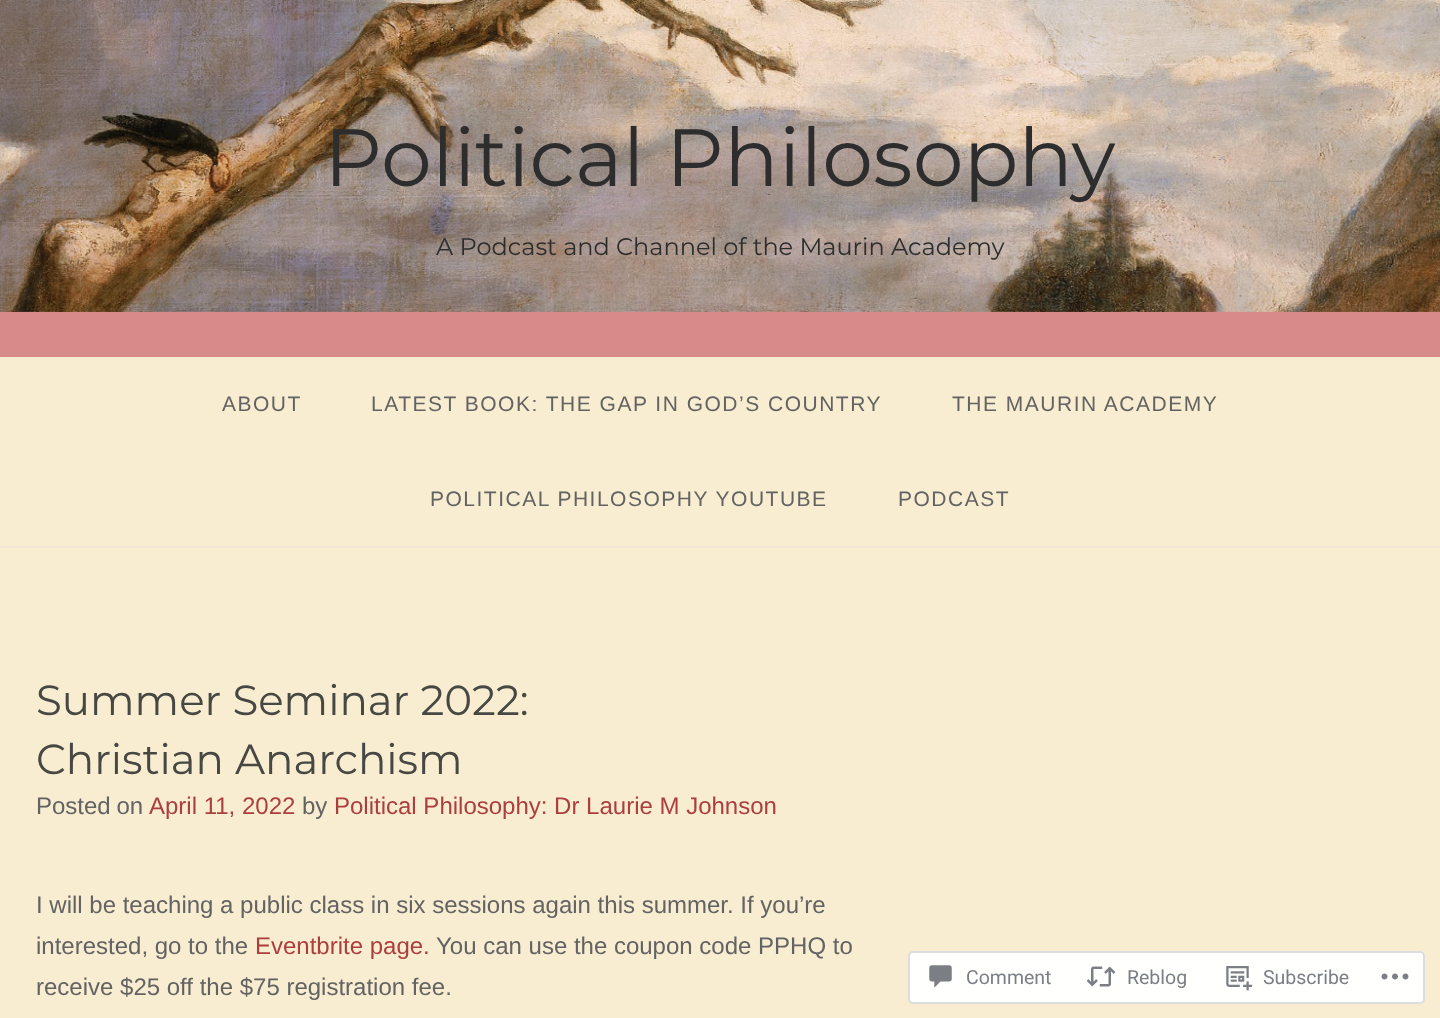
<!DOCTYPE html>
<meta charset="utf-8">
<style>body { margin: 0 } canvas { display: block }</style>
<canvas id="canvas" width="1440" height="1018"></canvas>
<script type="module">
  const canvas = document.getElementById("canvas");
  const g = canvas.getContext("2d");
  g.miterLimit = 4;
  g.fontKerning = "normal";
  function drawText(s, x, y, [font, color]) {
    g.font = font;
    g.fillStyle = color;
    g.fillText(s, x, y);
  }
  function fillBox(x, y, w, h, color) {
    g.fillStyle = color;
    g.fillRect(x, y, w, h);
  }
  async function drawPicture(src, x, y, w, h) {
    const img = new Image();
    img.src = src;
    await img.decode();
    g.drawImage(img, x, y, w, h);
  }

  const s1 = ["100 81px Montserrat", "#2D2D2D"];
  const s2 = ["100 24px Montserrat", "#2D2D2D"];
  const s3 = ["21px Arimo", "#636363"];
  const s4 = ["100 42px Montserrat", "#474843"];
  const s5 = ["24px Arimo", "#636363"];
  const s6 = ["24px Arimo", "#AC3E3E"];
  const s7 = ["19.5px Roboto", "#7B7E84"];

  fillBox(0, 0, 1440, 1018, "#F8EDD1");
  fillBox(0, 311, 1440, 46, "#D88A8A");
  await drawPicture("pic1.png", 0, 0, 1440, 312);
  drawText("Political Philosophy", 324, 186, s1);
  drawText("A Podcast and Channel of the Maurin Academy", 436, 255, s2);
  fillBox(0, 546, 1440, 2, "#F0E8D5");
  g.letterSpacing = "1.5px";
  drawText("ABOUT", 222, 411, s3);
  drawText("LATEST BOOK: THE GAP IN GOD’S COUNTRY", 371, 411, s3);
  drawText("THE MAURIN ACADEMY", 952, 411, s3);
  drawText("POLITICAL PHILOSOPHY YOUTUBE", 430, 506, s3);
  drawText("PODCAST", 898, 506, s3);
  g.letterSpacing = "0px";
  drawText("Summer Seminar 2022:", 36, 715, s4);
  drawText("Christian Anarchism", 36, 774, s4);
  g.wordSpacing = "-1px";
  drawText("Posted on", 36, 814, s5);
  g.wordSpacing = "0px";
  drawText("April 11, 2022", 149, 814, s6);
  drawText("by", 302, 814, s5);
  drawText("Political Philosophy: Dr Laurie M Johnson", 334, 814, s6);
  drawText("I will be teaching a public class in six sessions again this summer. If you’re", 36, 913, s5);
  drawText("interested, go to the", 36, 954, s5);
  drawText("Eventbrite page.", 255, 954, s6);
  drawText("You can use the coupon code PPHQ to", 436, 954, s5);
  drawText("receive $25 off the $75 registration fee.", 36, 995, s5);
  g.fillStyle = "#FFFFFE";
  g.beginPath();
  g.roundRect(909, 952, 515, 51, 4);
  g.fill();
  g.strokeStyle = "#DDDCDE";
  g.lineWidth = 2;
  g.stroke();
  await drawPicture("pic2.png", 929, 965, 23, 23);
  drawText("Comment", 966, 984, s7);
  await drawPicture("pic3.png", 1086, 966, 30, 21);
  drawText("Reblog", 1127, 984, s7);
  await drawPicture("pic4.png", 1226, 966, 27, 25);
  drawText("Subscribe", 1263, 984, s7);
  await drawPicture("pic5.png", 1381, 973, 28, 7);
</script>
